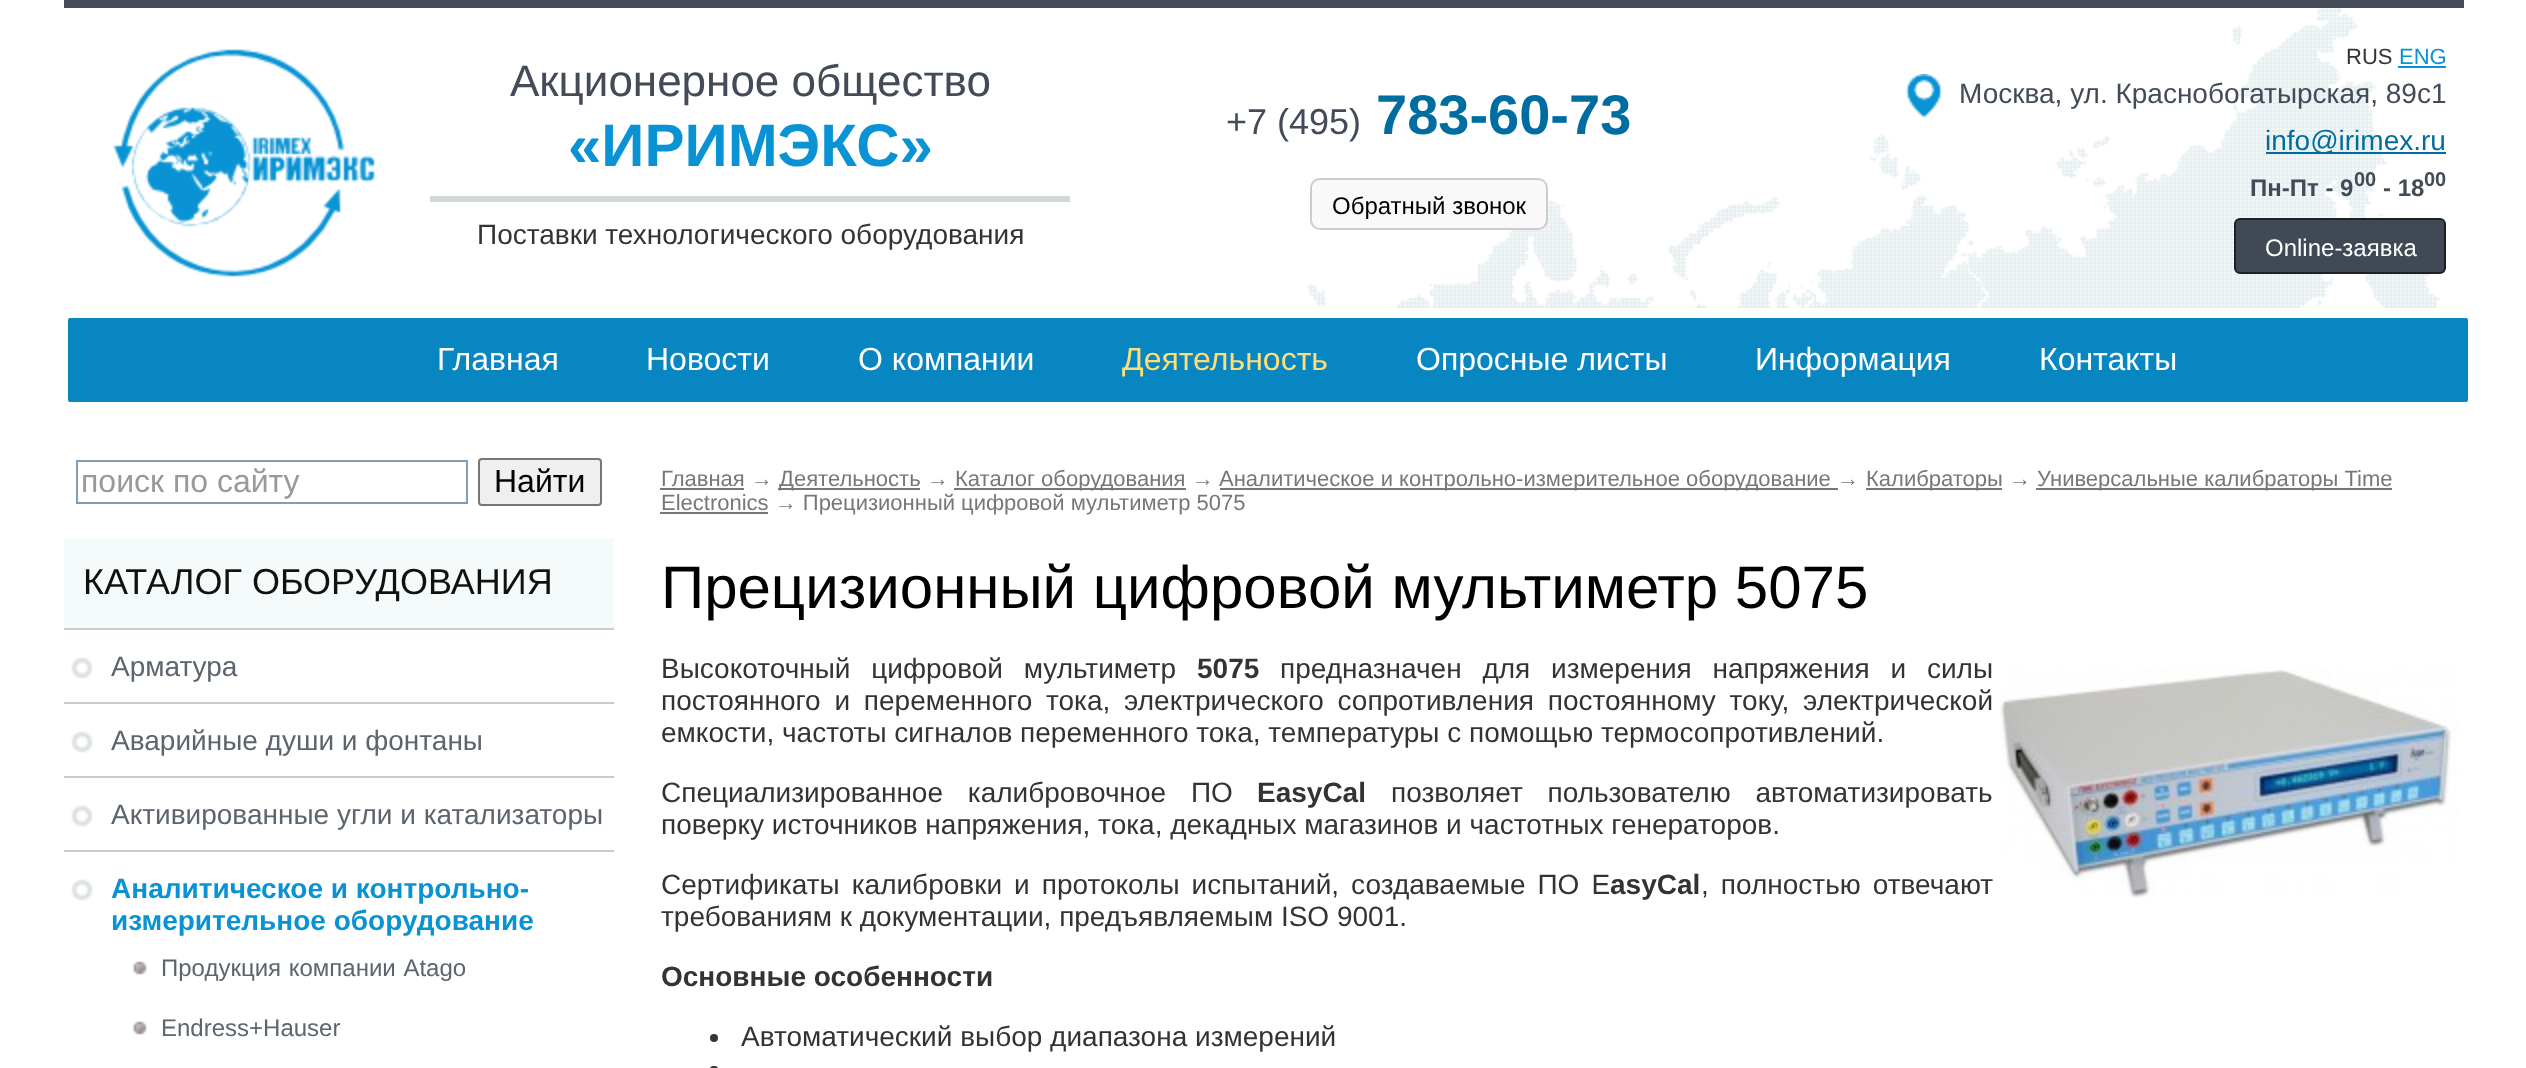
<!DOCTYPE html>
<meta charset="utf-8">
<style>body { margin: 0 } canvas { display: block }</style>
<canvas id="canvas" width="2526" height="1068"></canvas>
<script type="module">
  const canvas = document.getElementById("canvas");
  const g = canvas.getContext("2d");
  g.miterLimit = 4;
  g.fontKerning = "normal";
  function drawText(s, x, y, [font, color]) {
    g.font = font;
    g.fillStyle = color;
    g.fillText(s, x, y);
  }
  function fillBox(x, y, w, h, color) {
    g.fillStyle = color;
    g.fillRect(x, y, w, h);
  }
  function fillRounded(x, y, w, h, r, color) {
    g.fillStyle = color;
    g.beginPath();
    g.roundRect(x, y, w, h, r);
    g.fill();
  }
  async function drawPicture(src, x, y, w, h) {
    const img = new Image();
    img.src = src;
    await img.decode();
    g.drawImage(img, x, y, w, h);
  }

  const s1 = ["44px Liberation Sans", "#424B57"];
  const s2 = ["bold 60px Liberation Sans", "#0993D4"];
  const s3 = ["28px Liberation Sans", "#333333"];
  const s4 = ["36px Liberation Sans", "#424B57"];
  const s5 = ["bold 56px Liberation Sans", "#006DA1"];
  const s6 = ["24px Liberation Sans", "#000000"];
  const s7 = ["22px Liberation Sans", "#333333"];
  const s8 = ["22px Liberation Sans", "#0993D4"];
  const s9 = ["28px Liberation Sans", "#424B57"];
  const s10 = ["28px Liberation Sans", "#006DA1"];
  const s11 = ["bold 24px Liberation Sans", "#424B57"];
  const s12 = ["bold 20px Liberation Sans", "#424B57"];
  const s13 = ["24px Liberation Sans", "#FFFFFF"];
  const s14 = ["32px Liberation Sans", "#FFFFFF"];
  const s15 = ["32px Liberation Sans", "#FFDE79"];
  const s16 = ["32px Liberation Sans", "#999999"];
  const s17 = ["32px Liberation Sans", "#000000"];
  const s18 = ["36px Liberation Sans", "#111111"];
  const s19 = ["28px Liberation Sans", "#5C646D"];
  const s20 = ["bold 28px Liberation Sans", "#0993D4"];
  const s21 = ["24px Liberation Sans", "#5C646D"];
  const s22 = ["22px Liberation Sans", "#777777"];
  const s23 = ["60px Liberation Sans", "#000000"];
  const s24 = ["bold 28px Liberation Sans", "#333333"];

  fillBox(0, 0, 2526, 1068, "#FFFFFF");
  fillBox(64, 0, 2400, 8, "#454D58");
  await drawPicture("pic1.png", 1306, 8, 1142, 300);
  await drawPicture("pic2.png", 113, 49, 262, 228);
  drawText("Акционерное общество", 510, 96, s1);
  drawText("«ИРИМЭКС»", 568, 166, s2);
  fillBox(430, 196, 640, 6, "#D1D6D8");
  drawText("Поставки технологического оборудования", 477, 244, s3);
  drawText("+7 (495)", 1226, 134, s4);
  drawText("783-60-73", 1376, 134, s5);
  g.fillStyle = "#F9F9F9";
  g.beginPath();
  g.roundRect(1311, 179, 236, 50, 9);
  g.fill();
  g.strokeStyle = "#CCCCCC";
  g.lineWidth = 2;
  g.stroke();
  drawText("Обратный звонок", 1332, 214, s6);
  drawText("RUS", 2346, 64, s7);
  drawText("ENG", 2399, 64, s8);
  fillBox(2398, 66, 48, 2, "#0993D4");
  await drawPicture("pic3.png", 1906, 74, 36, 44);
  drawText("Москва, ул. Краснобогатырская, 89с1", 1959, 103, s9);
  fillBox(2266, 152, 180, 2, "#006DA1");
  drawText("info@irimex.ru", 2265, 150, s10);
  drawText("Пн-Пт - 9", 2250, 196, s11);
  drawText("00", 2354, 186, s12);
  drawText("- 18", 2383, 196, s11);
  drawText("00", 2424, 186, s12);
  g.fillStyle = "#404954";
  g.beginPath();
  g.roundRect(2235, 219, 210, 54, 5);
  g.fill();
  g.strokeStyle = "#1D2126";
  g.stroke();
  drawText("Online-заявка", 2265, 256, s13);
  g.fillStyle = "#0886C1";
  g.beginPath();
  g.roundRect(66, 316, 2404, 88, 4);
  g.fill();
  g.strokeStyle = "#FFFFFF";
  g.lineWidth = 4;
  g.stroke();
  drawText("Главная", 437, 370, s14);
  drawText("Новости", 646, 370, s14);
  drawText("О компании", 858, 370, s14);
  drawText("Деятельность", 1122, 370, s15);
  drawText("Опросные листы", 1416, 370, s14);
  drawText("Информация", 1755, 370, s14);
  drawText("Контакты", 2039, 370, s14);
  g.strokeStyle = "#7F9DB9";
  g.lineWidth = 2;
  g.strokeRect(77, 461, 390, 42);
  drawText("поиск по сайту", 81, 492, s16);
  g.fillStyle = "#EFEFEF";
  g.beginPath();
  g.roundRect(479, 459, 122, 46, 3);
  g.fill();
  g.strokeStyle = "#767676";
  g.stroke();
  drawText("Найти", 494, 492, s17);
  fillBox(64, 538, 550, 90, "#F5FBFB");
  fillBox(64, 628, 550, 2, "#CCCCCC");
  drawText("КАТАЛОГ ОБОРУДОВАНИЯ", 83, 594, s18);
  await drawPicture("pic4.png", 71, 657, 22, 22);
  fillBox(64, 702, 550, 2, "#CCCCCC");
  drawText("Арматура", 111, 676, s19);
  await drawPicture("pic4.png", 71, 731, 22, 22);
  fillBox(64, 776, 550, 2, "#CCCCCC");
  drawText("Аварийные души и фонтаны", 111, 750, s19);
  await drawPicture("pic4.png", 71, 805, 22, 22);
  fillBox(64, 850, 550, 2, "#CCCCCC");
  drawText("Активированные угли и катализаторы", 111, 824, s19);
  await drawPicture("pic4.png", 71, 879, 22, 22);
  drawText("Аналитическое и контрольно-", 111, 898, s20);
  drawText("измерительное оборудование", 111, 930, s20);
  await drawPicture("pic5.png", 132, 961, 15, 14);
  g.wordSpacing = "1px";
  drawText("Продукция компании Atago", 161, 976, s21);
  await drawPicture("pic5.png", 132, 1021, 15, 14);
  g.wordSpacing = "0px";
  drawText("Endress+Hauser", 161, 1036, s21);
  drawText("Главная →", 661, 486, s22);
  fillBox(660, 488, 84, 2, "#777777");
  fillBox(778, 488, 142, 2, "#777777");
  drawText("Деятельность →", 779, 486, s22);
  fillBox(954, 488, 232, 2, "#777777");
  drawText("Каталог оборудования →", 955, 486, s22);
  fillBox(1220, 488, 618, 2, "#777777");
  drawText("Аналитическое и контрольно-измерительное оборудование →", 1219, 486, s22);
  fillBox(1866, 488, 136, 2, "#777777");
  drawText("Калибраторы →", 1866, 486, s22);
  fillBox(2036, 488, 356, 2, "#777777");
  drawText("Универсальные калибраторы Time", 2037, 486, s22);
  fillBox(660, 512, 108, 2, "#777777");
  drawText("Electronics → Прецизионный цифровой мультиметр 5075", 661, 510, s22);
  drawText("Прецизионный цифровой мультиметр 5075", 661, 608, s23);
  g.wordSpacing = "13px";
  drawText("Высокоточный цифровой мультиметр", 661, 678, s3);
  g.wordSpacing = "0px";
  drawText("5075", 1197, 678, s24);
  g.wordSpacing = "13px";
  drawText("предназначен для измерения напряжения и силы", 1280, 678, s3);
  await drawPicture("pic6.png", 2000, 669, 458, 229);
  g.wordSpacing = "6px";
  drawText("постоянного и переменного тока, электрического сопротивления постоянному току, электрической", 661, 710, s3);
  g.wordSpacing = "0px";
  drawText("емкости, частоты сигналов переменного тока, температуры с помощью термосопротивлений.", 661, 742, s3);
  g.wordSpacing = "17px";
  drawText("Специализированное калибровочное ПО", 661, 802, s3);
  g.wordSpacing = "0px";
  drawText("EasyCal", 1257, 802, s24);
  g.wordSpacing = "17px";
  drawText("позволяет пользователю автоматизировать", 1391, 802, s3);
  g.wordSpacing = "0px";
  drawText("поверку источников напряжения, тока, декадных магазинов и частотных генераторов.", 661, 834, s3);
  g.wordSpacing = "4.25px";
  drawText("Сертификаты калибровки и протоколы испытаний, создаваемые ПО E", 661, 894, s3);
  g.wordSpacing = "0px";
  drawText("asyCal", 1610, 894, s24);
  g.wordSpacing = "4.25px";
  drawText(", полностью отвечают", 1701, 894, s3);
  g.wordSpacing = "0px";
  drawText("требованиям к документации, предъявляемым ISO 9001.", 661, 926, s3);
  drawText("Основные особенности", 661, 986, s24);
  g.fillStyle = "#363636";
  g.beginPath();
  g.arc(714, 1038, 4, 0, Math.PI * 2);
  g.fill();
  drawText("Автоматический выбор диапазона измерений", 741, 1046, s3);
  fillRounded(710, 1066, 8, 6, 4, "#363636");
</script>
